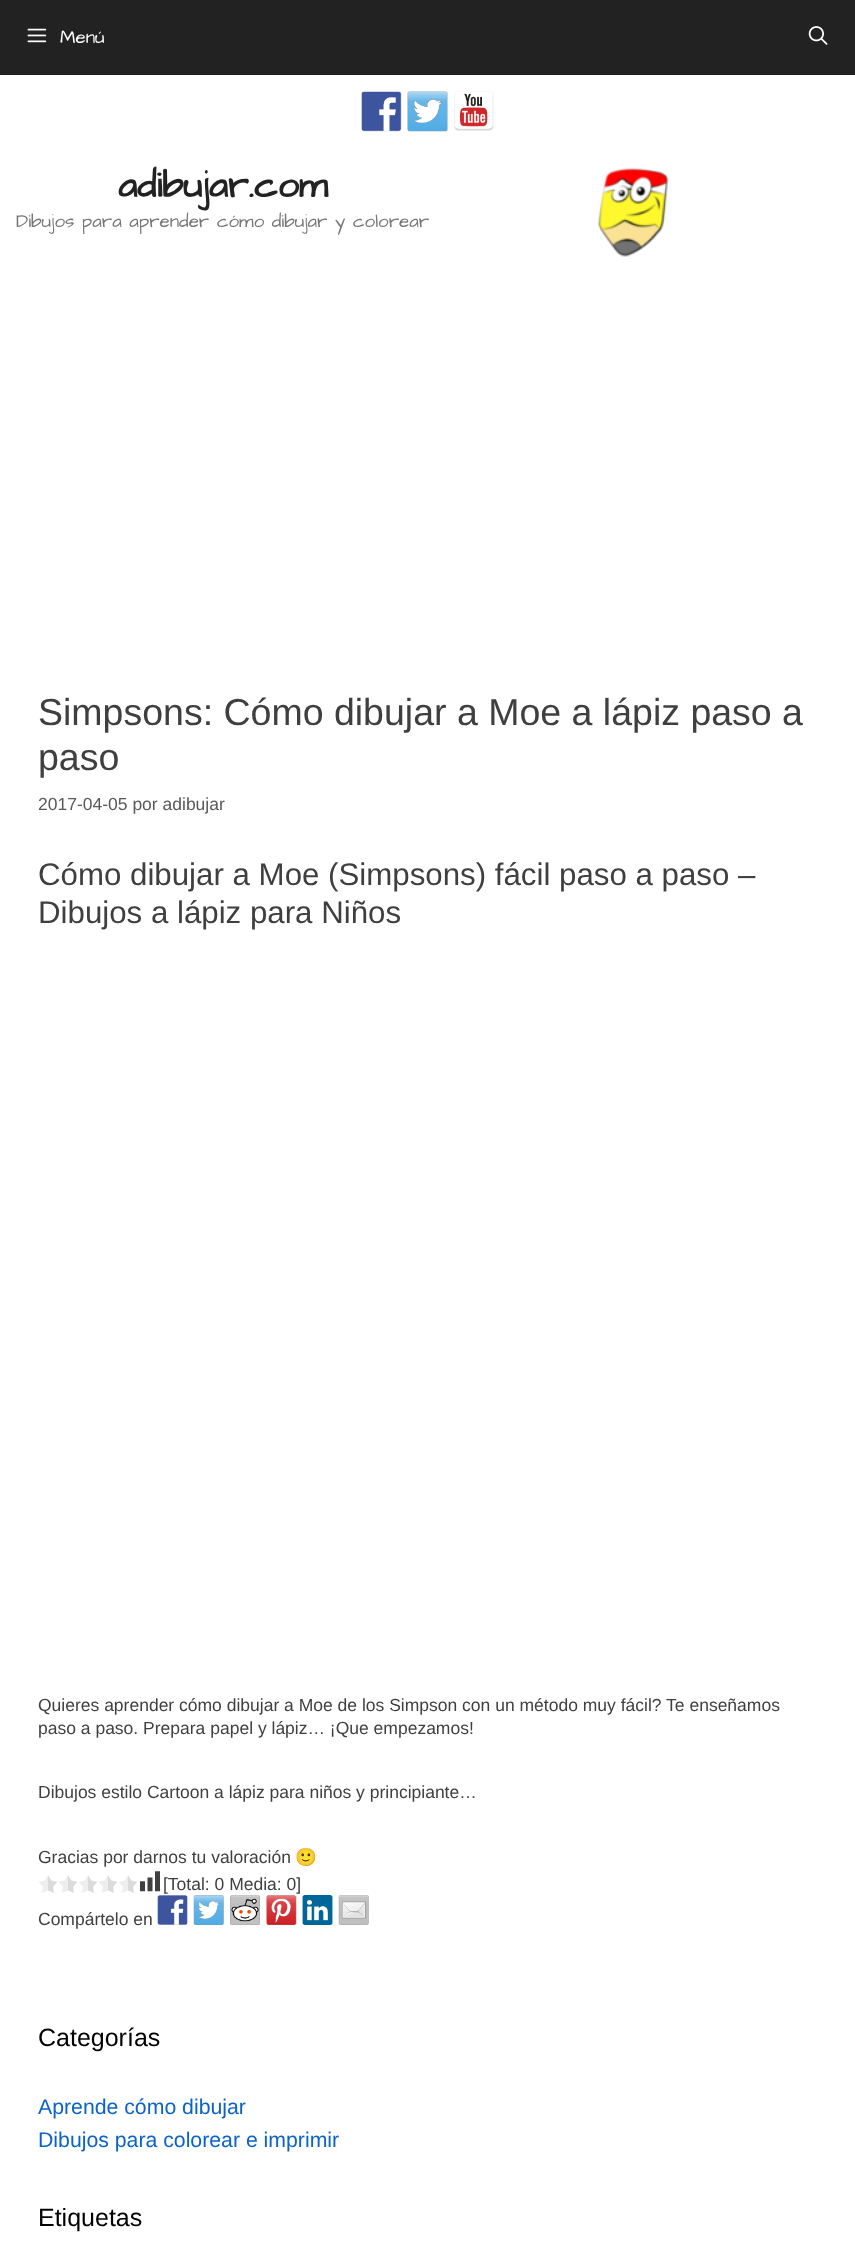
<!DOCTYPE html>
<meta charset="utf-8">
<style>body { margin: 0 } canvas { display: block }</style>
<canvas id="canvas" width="855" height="2251"></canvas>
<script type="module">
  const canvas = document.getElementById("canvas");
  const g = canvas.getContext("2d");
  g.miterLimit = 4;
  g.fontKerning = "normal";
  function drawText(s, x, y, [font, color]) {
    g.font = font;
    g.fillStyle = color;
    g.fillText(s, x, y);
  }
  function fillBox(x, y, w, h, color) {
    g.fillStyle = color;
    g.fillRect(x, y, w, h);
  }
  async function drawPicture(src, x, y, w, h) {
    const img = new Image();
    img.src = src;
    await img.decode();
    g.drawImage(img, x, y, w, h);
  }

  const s1 = ["18.75px Architects Daughter", "#FFFFFF"];
  const s2 = ["bold 37.5px Architects Daughter", "#222222"];
  const s3 = ["18.75px Architects Daughter", "#757575"];
  const s4 = ["37.5px Liberation Sans", "#3F3F3F"];
  const s5 = ["17.5px Liberation Sans", "#595959"];
  const s6 = ["31.25px Liberation Sans", "#3F3F3F"];
  const s7 = ["17.5px Liberation Sans", "#3F3F3F"];
  const s8 = ["17.5px Noto Color Emoji", "#3F3F3F"];
  const s9 = ["25px Liberation Sans", "#000000"];
  const s10 = ["21.25px Liberation Sans", "#0A63C9"];

  fillBox(0, 0, 855, 2251, "#FFFFFF");
  fillBox(0, 0, 855, 75, "#222222");
  await drawPicture("pic1.png", 27, 28, 20, 15);
  drawText("Menú", 60, 43, s1);
  await drawPicture("pic2.png", 808, 26, 20, 19);
  await drawPicture("pic3.png", 361, 91, 41, 41);
  await drawPicture("pic4.png", 407, 91, 41, 41);
  await drawPicture("pic5.png", 454, 91, 40, 40);
  drawText("adibujar.com", 118, 197, s2);
  drawText("Dibujos para aprender cómo dibujar y colorear", 16, 227, s3);
  await drawPicture("pic6.png", 597, 167, 72, 90);
  drawText("Simpsons: Cómo dibujar a Moe a lápiz paso a", 38, 725, s4);
  drawText("paso", 38, 770, s4);
  drawText("2017-04-05 por adibujar", 38, 810, s5);
  drawText("Cómo dibujar a Moe (Simpsons) fácil paso a paso –", 38, 885, s6);
  drawText("Dibujos a lápiz para Niños", 38, 923, s6);
  drawText("Quieres aprender cómo dibujar a Moe de los Simpson con un método muy fácil? Te enseñamos", 38, 1711, s7);
  drawText("paso a paso. Prepara papel y lápiz… ¡Que empezamos!", 38, 1734, s7);
  drawText("Dibujos estilo Cartoon a lápiz para niños y principiante…", 38, 1798, s7);
  drawText("Gracias por darnos tu valoración", 38, 1863, s7);
  drawText("🙂", 295, 1863, s8);
  await drawPicture("pic7.png", 39, 1875, 98, 18);
  await drawPicture("pic8.png", 140, 1871, 20, 21);
  drawText("[Total: 0 Media: 0]", 163, 1890, s7);
  drawText("Compártelo en", 38, 1925, s7);
  await drawPicture("pic9.png", 157, 1895, 31, 30);
  await drawPicture("pic10.png", 193, 1895, 31, 30);
  await drawPicture("pic11.png", 230, 1895, 30, 30);
  await drawPicture("pic12.png", 266, 1895, 31, 30);
  await drawPicture("pic13.png", 302, 1895, 31, 30);
  await drawPicture("pic14.png", 338, 1895, 31, 30);
  drawText("Categorías", 38, 2046, s9);
  drawText("Aprende cómo dibujar", 38, 2114, s10);
  drawText("Dibujos para colorear e imprimir", 38, 2147, s10);
  drawText("Etiquetas", 38, 2226, s9);
</script>
